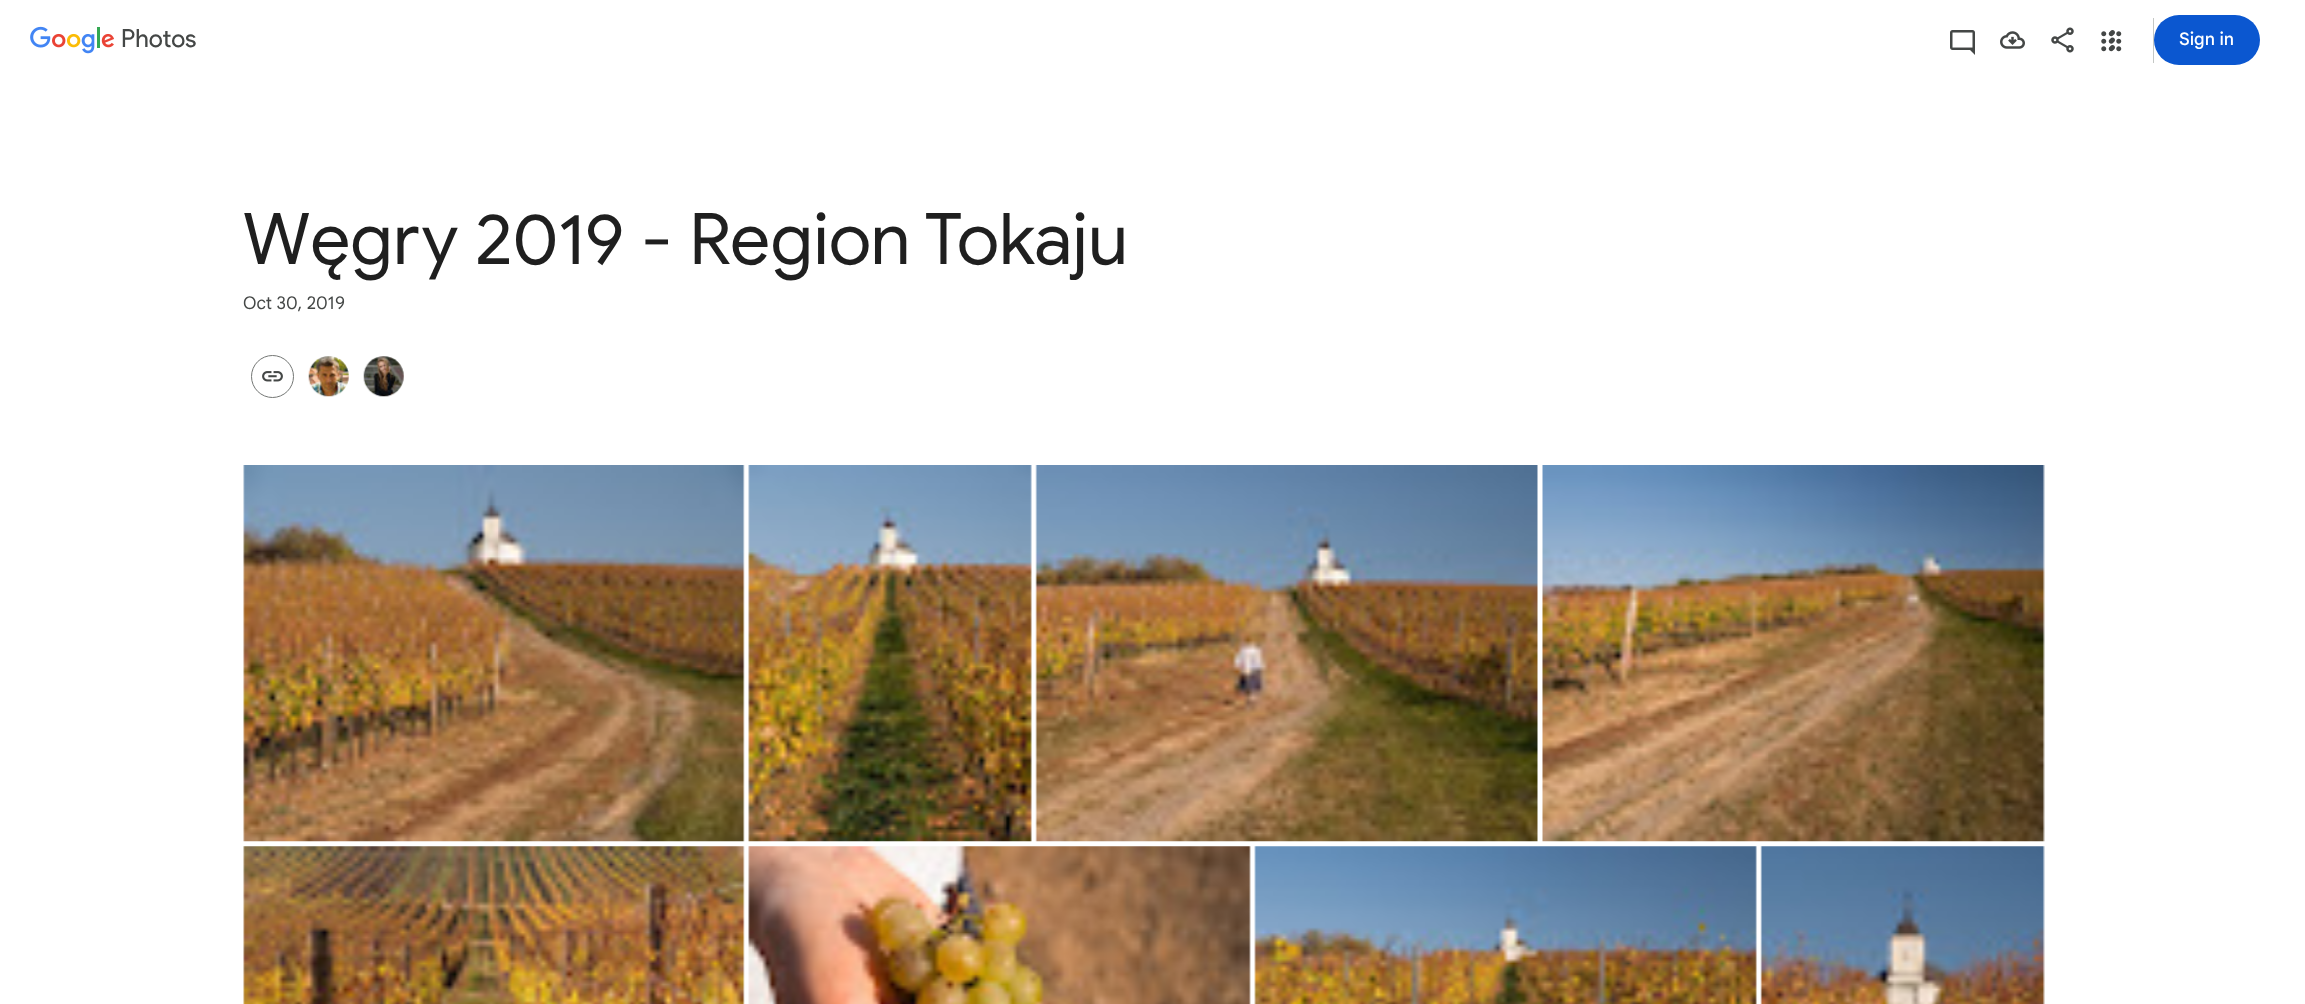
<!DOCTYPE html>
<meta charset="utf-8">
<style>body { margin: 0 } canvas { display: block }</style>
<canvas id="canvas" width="2305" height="1004"></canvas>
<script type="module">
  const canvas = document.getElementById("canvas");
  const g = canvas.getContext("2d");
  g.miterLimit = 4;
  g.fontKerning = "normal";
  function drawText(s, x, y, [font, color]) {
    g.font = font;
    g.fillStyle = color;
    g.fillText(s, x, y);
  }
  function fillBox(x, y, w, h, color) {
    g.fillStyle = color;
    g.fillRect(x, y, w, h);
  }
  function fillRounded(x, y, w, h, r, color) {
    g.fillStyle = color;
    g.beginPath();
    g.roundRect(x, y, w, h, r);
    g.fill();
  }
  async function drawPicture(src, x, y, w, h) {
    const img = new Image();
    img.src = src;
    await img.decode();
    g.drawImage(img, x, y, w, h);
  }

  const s1 = ["25px Product Sans", "#444746"];
  const s2 = ["71.25px Google Sans", "#1F1F1F"];
  const s3 = ["17.5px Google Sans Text", "#444746"];
  const s4 = ["500 17.5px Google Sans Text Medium", "#FFFFFF"];

  fillBox(0, 0, 2305, 1004, "#FFFFFF");
  await drawPicture("pic1.png", 30, 26, 84, 28);
  drawText("Photos", 121, 47, s1);
  await drawPicture("pic2.png", 1950, 30, 25, 25);
  await drawPicture("pic3.png", 2000, 31, 25, 18);
  await drawPicture("pic4.png", 2051, 27, 23, 26);
  await drawPicture("pic5.png", 2110, 30, 5, 20);
  fillBox(2153, 18, 1, 45, "#C4C7C5");
  drawText("Węgry 2019 - Region Tokaju", 243, 264, s2);
  drawText("Oct 30, 2019", 243, 309, s3);
  g.beginPath();
  g.arc(272.5, 376.5, 21, 0, Math.PI * 2);
  g.strokeStyle = "#747775";
  g.stroke();
  await drawPicture("pic6.png", 262, 371, 21, 11);
  await drawPicture("pic7.png", 308, 356, 41, 41);
  await drawPicture("pic8.png", 363, 356, 41, 41);
  await drawPicture("pic9.png", 243, 465, 502, 377);
  await drawPicture("pic10.png", 748, 465, 284, 377);
  await drawPicture("pic11.png", 1035, 465, 503, 377);
  await drawPicture("pic12.png", 1542, 465, 503, 377);
  await drawPicture("pic13.png", 243, 846, 502, 158);
  await drawPicture("pic14.png", 748, 846, 503, 158);
  await drawPicture("pic15.png", 1254, 846, 503, 158);
  await drawPicture("pic16.png", 1760, 846, 285, 158);
  await drawPicture("pic17.png", 2101, 31, 21, 21);
  fillRounded(2154, 15, 106, 50, 25, "#0B57D0");
  drawText("Sign in", 2179, 45, s4);
</script>
